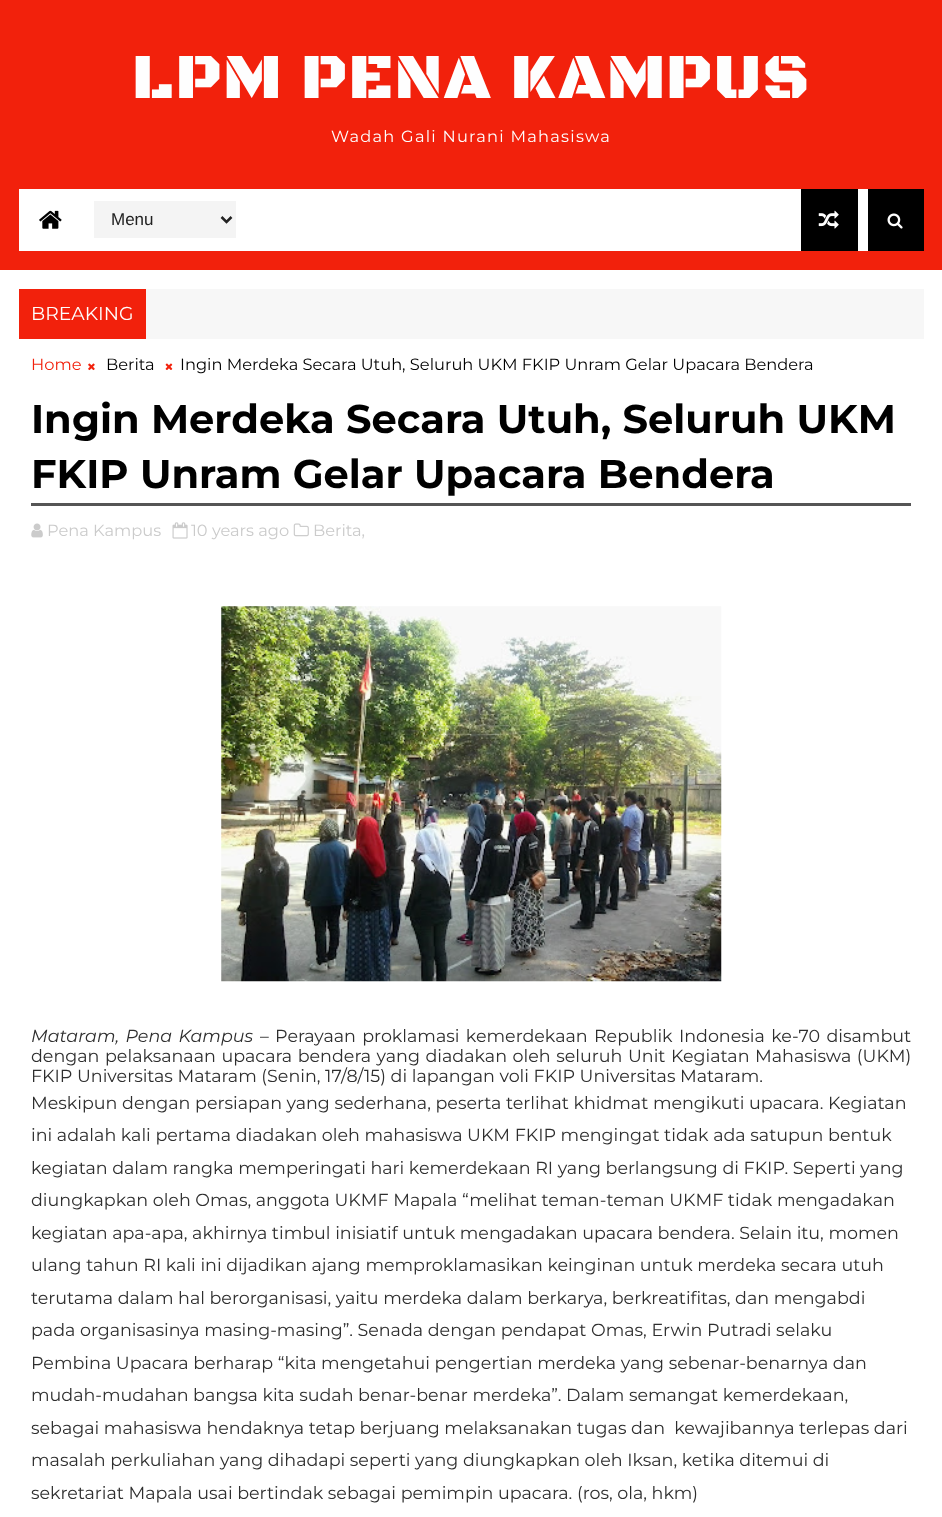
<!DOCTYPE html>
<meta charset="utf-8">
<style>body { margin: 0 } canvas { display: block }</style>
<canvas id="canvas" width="942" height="1517"></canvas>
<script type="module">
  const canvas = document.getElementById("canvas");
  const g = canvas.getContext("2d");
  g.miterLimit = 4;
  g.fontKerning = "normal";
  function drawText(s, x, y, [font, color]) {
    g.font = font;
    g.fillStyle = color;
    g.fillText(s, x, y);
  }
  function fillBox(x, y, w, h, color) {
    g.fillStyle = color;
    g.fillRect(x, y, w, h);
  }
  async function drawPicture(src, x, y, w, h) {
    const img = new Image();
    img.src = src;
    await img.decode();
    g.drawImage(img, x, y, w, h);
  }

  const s1 = ["900 65px Black Ops One", "#FEFEFE"];
  const s2 = ["16.25px Montserrat", "#FEFEFE"];
  const s3 = ["17px Liberation Sans", "#222222"];
  const s4 = ["18.75px Montserrat", "#FEFEFE"];
  const s5 = ["16.25px Montserrat", "#F2210C"];
  const s6 = ["16.25px Montserrat", "#000000"];
  const s7 = ["bold 40px Montserrat", "#000000"];
  const s8 = ["16.25px Montserrat", "#CBCBCB"];
  const s9 = ["italic 100 17.5px Montserrat", "#2E2E2E"];
  const s10 = ["17.5px Montserrat", "#2E2E2E"];

  fillBox(0, 0, 942, 1517, "#FFFFFF");
  fillBox(0, 0, 942, 270, "#F2210C");
  g.letterSpacing = "1.25px";
  drawText("LPM PENA KAMPUS", 132, 98, s1);
  drawText("Wadah Gali Nurani Mahasiswa", 331, 142, s2);
  fillBox(19, 189, 849, 62, "#FFFFFF");
  await drawPicture("pic1.png", 39, 210, 23, 19);
  fillBox(94, 201, 142, 37, "#F4F4F4");
  g.beginPath();
  g.moveTo(221.5, 217);
  g.lineTo(226.5, 222);
  g.lineTo(231.5, 217);
  g.strokeStyle = "#222222";
  g.lineWidth = 2.5;
  g.stroke();
  g.letterSpacing = "0px";
  drawText("Menu", 111, 225, s3);
  fillBox(801, 189, 57, 62, "#000000");
  await drawPicture("pic2.png", 818, 210, 21, 19);
  fillBox(868, 189, 56, 62, "#000000");
  await drawPicture("pic3.png", 887, 213, 16, 16);
  fillBox(146, 289, 778, 50, "#F7F7F7");
  fillBox(19, 289, 127, 50, "#F2210C");
  drawText("BREAKING", 31, 320, s4);
  drawText("Home", 31, 370, s5);
  await drawPicture("pic4.png", 88, 363, 7, 8);
  drawText("Berita", 106, 370, s6);
  await drawPicture("pic5.png", 165, 363, 8, 7);
  drawText("Ingin Merdeka Secara Utuh, Seluruh UKM FKIP Unram Gelar Upacara Bendera", 180, 370, s6);
  fillBox(31, 503, 880, 3, "#555555");
  drawText("Ingin Merdeka Secara Utuh, Seluruh UKM", 31, 433, s7);
  drawText("FKIP Unram Gelar Upacara Bendera", 31, 488, s7);
  await drawPicture("pic6.png", 31, 523, 12, 15);
  drawText("Pena Kampus", 47, 536, s8);
  await drawPicture("pic7.png", 172, 522, 16, 17);
  drawText("10 years ago", 191, 536, s8);
  await drawPicture("pic8.png", 293, 523, 16, 14);
  drawText("Berita,", 313, 536, s8);
  await drawPicture("pic9.png", 221, 606, 501, 376);
  g.wordSpacing = "1.75px";
  drawText("Mataram, Pena Kampus", 31, 1042, s9);
  drawText("– Perayaan proklamasi kemerdekaan Republik Indonesia ke-70 disambut", 260, 1042, s10);
  g.wordSpacing = "1px";
  drawText("dengan pelaksanaan upacara bendera yang diadakan oleh seluruh Unit Kegiatan Mahasiswa (UKM)", 31, 1062, s10);
  g.wordSpacing = "0px";
  drawText("FKIP Universitas Mataram (Senin, 17/8/15) di lapangan voli FKIP Universitas Mataram.", 31, 1082, s10);
  drawText("Meskipun dengan persiapan yang sederhana, peserta terlihat khidmat mengikuti upacara. Kegiatan", 31, 1109, s10);
  drawText("ini adalah kali pertama diadakan oleh mahasiswa UKM FKIP mengingat tidak ada satupun bentuk", 31, 1141, s10);
  drawText("kegiatan dalam rangka memperingati hari kemerdekaan RI yang berlangsung di FKIP. Seperti yang", 31, 1174, s10);
  drawText("diungkapkan oleh Omas, anggota UKMF Mapala “melihat teman-teman UKMF tidak mengadakan", 31, 1206, s10);
  drawText("kegiatan apa-apa, akhirnya timbul inisiatif untuk mengadakan upacara bendera. Selain itu, momen", 31, 1239, s10);
  drawText("ulang tahun RI kali ini dijadikan ajang memproklamasikan keinginan untuk merdeka secara utuh", 31, 1271, s10);
  drawText("terutama dalam hal berorganisasi, yaitu merdeka dalam berkarya, berkreatifitas, dan mengabdi", 31, 1304, s10);
  drawText("pada organisasinya masing-masing”. Senada dengan pendapat Omas, Erwin Putradi selaku", 31, 1336, s10);
  drawText("Pembina Upacara berharap “kita mengetahui pengertian merdeka yang sebenar-benarnya dan", 31, 1369, s10);
  drawText("mudah-mudahan bangsa kita sudah benar-benar merdeka”. Dalam semangat kemerdekaan,", 31, 1401, s10);
  drawText("sebagai mahasiswa hendaknya tetap berjuang melaksanakan tugas dan  kewajibannya terlepas dari", 31, 1434, s10);
  drawText("masalah perkuliahan yang dihadapi seperti yang diungkapkan oleh Iksan, ketika ditemui di", 31, 1466, s10);
  drawText("sekretariat Mapala usai bertindak sebagai pemimpin upacara. (ros, ola, hkm)", 31, 1499, s10);
</script>
